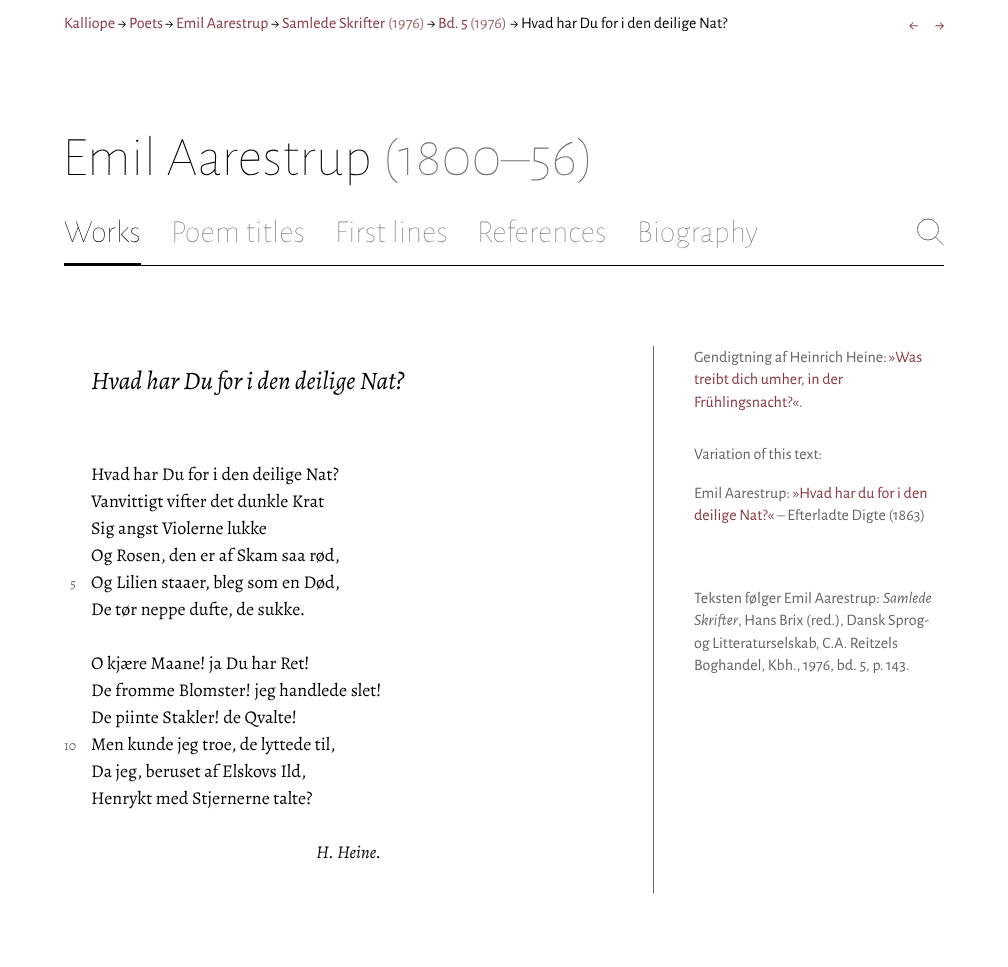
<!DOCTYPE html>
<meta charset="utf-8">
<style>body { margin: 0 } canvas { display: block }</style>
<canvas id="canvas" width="1008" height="967"></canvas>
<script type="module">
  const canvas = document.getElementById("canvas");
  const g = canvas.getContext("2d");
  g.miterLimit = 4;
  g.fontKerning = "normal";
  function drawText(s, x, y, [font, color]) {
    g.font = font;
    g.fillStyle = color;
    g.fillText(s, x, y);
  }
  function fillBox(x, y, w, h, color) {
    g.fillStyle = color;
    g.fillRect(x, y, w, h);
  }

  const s1 = ["16px Alegreya Sans", "#8B3741"];
  const s2 = ["16px Alegreya Sans", "#000000"];
  const s3 = ["16px Alegreya Sans", "#9C686C"];
  const s4 = ["18px Alegreya Sans", "#8B3741"];
  const s5 = ["200 56px Alegreya Sans", "#000000"];
  const s6 = ["200 56px Alegreya Sans", "#757575"];
  const s7 = ["200 32px Alegreya Sans", "#000000"];
  const s8 = ["200 32px Alegreya Sans", "#757575"];
  const s9 = ["italic 25.25px Alegreya", "#000000"];
  const s10 = ["18px Alegreya", "#000000"];
  const s11 = ["14px Alegreya", "#757575"];
  const s12 = ["italic 18px Alegreya", "#000000"];
  const s13 = ["16px Alegreya Sans", "#666666"];
  const s14 = ["italic 16px Alegreya Sans", "#666666"];

  fillBox(0, 0, 1008, 967, "#FFFFFF");
  drawText("Kalliope", 64, 28, s1);
  drawText("→", 118, 28, s2);
  drawText("Poets", 129, 28, s1);
  drawText("→", 165, 28, s2);
  drawText("Emil Aarestrup", 176, 28, s1);
  drawText("→", 271, 28, s2);
  drawText("Samlede Skrifter", 282, 28, s1);
  drawText("(1976)", 388, 28, s3);
  drawText("→", 427, 28, s2);
  drawText("Bd. 5", 438, 28, s1);
  drawText("(1976)", 470, 28, s3);
  drawText("→ Hvad har Du for i den deilige Nat?", 510, 28, s2);
  drawText("←", 909, 30, s4);
  drawText("→", 935, 30, s4);
  drawText("Emil Aarestrup", 62, 175, s5);
  drawText("(1800–56)", 382, 175, s6);
  fillBox(64, 265, 880, 1, "#000000");
  fillBox(64, 263, 77, 2, "#000000");
  drawText("Works", 64, 242, s7);
  drawText("Poem titles", 171, 242, s8);
  drawText("First lines", 335, 242, s8);
  drawText("References", 477, 242, s8);
  drawText("Biography", 637, 242, s8);
  g.beginPath();
  g.arc(928, 229.5, 10.5, 0, Math.PI * 2);
  g.strokeStyle = "#707070";
  g.stroke();
  g.beginPath();
  g.moveTo(943.5, 245);
  g.lineTo(935.5, 237);
  g.lineCap = "round";
  g.lineJoin = "round";
  g.stroke();
  drawText("Hvad har Du for i den deilige Nat?", 91, 389, s9);
  drawText("Hvad har Du for i den deilige Nat?", 91, 480, s10);
  drawText("Vanvittigt vifter det dunkle Krat", 91, 507, s10);
  drawText("Sig angst Violerne lukke", 91, 534, s10);
  drawText("Og Rosen, den er af Skam saa rød,", 91, 561, s10);
  drawText("5", 70, 588, s11);
  drawText("Og Lilien staaer, bleg som en Død,", 91, 588, s10);
  drawText("De tør neppe dufte, de sukke.", 91, 615, s10);
  drawText("O kjære Maane! ja Du har Ret!", 91, 669, s10);
  drawText("De fromme Blomster! jeg handlede slet!", 91, 696, s10);
  drawText("De piinte Stakler! de Qvalte!", 91, 723, s10);
  drawText("10", 64, 750, s11);
  drawText("Men kunde jeg troe, de lyttede til,", 91, 750, s10);
  drawText("Da jeg, beruset af Elskovs Ild,", 91, 777, s10);
  drawText("Henrykt med Stjernerne talte?", 91, 804, s10);
  drawText("H. Heine.", 316, 858, s12);
  fillBox(653, 346, 1, 547, "#666666");
  drawText("Gendigtning af Heinrich Heine:", 694, 362, s13);
  drawText("»Was", 889, 362, s1);
  drawText("treibt dich umher, in der", 694, 384, s1);
  drawText("Frühlingsnacht?«", 694, 407, s1);
  drawText(".", 799, 407, s13);
  drawText("Variation of this text:", 694, 459, s13);
  drawText("Emil Aarestrup:", 694, 498, s13);
  drawText("»Hvad har du for i den", 793, 498, s1);
  drawText("deilige Nat?«", 694, 520, s1);
  drawText("– Efterladte Digte (1863)", 777, 520, s13);
  drawText("Teksten følger Emil Aarestrup:", 694, 603, s13);
  drawText("Samlede", 883, 603, s14);
  drawText("Skrifter", 694, 625, s14);
  drawText(", Hans Brix (red.), Dansk Sprog-", 738, 625, s13);
  drawText("og Litteraturselskab, C.A. Reitzels", 694, 648, s13);
  drawText("Boghandel, Kbh., 1976, bd. 5, p. 143.", 694, 670, s13);
</script>
